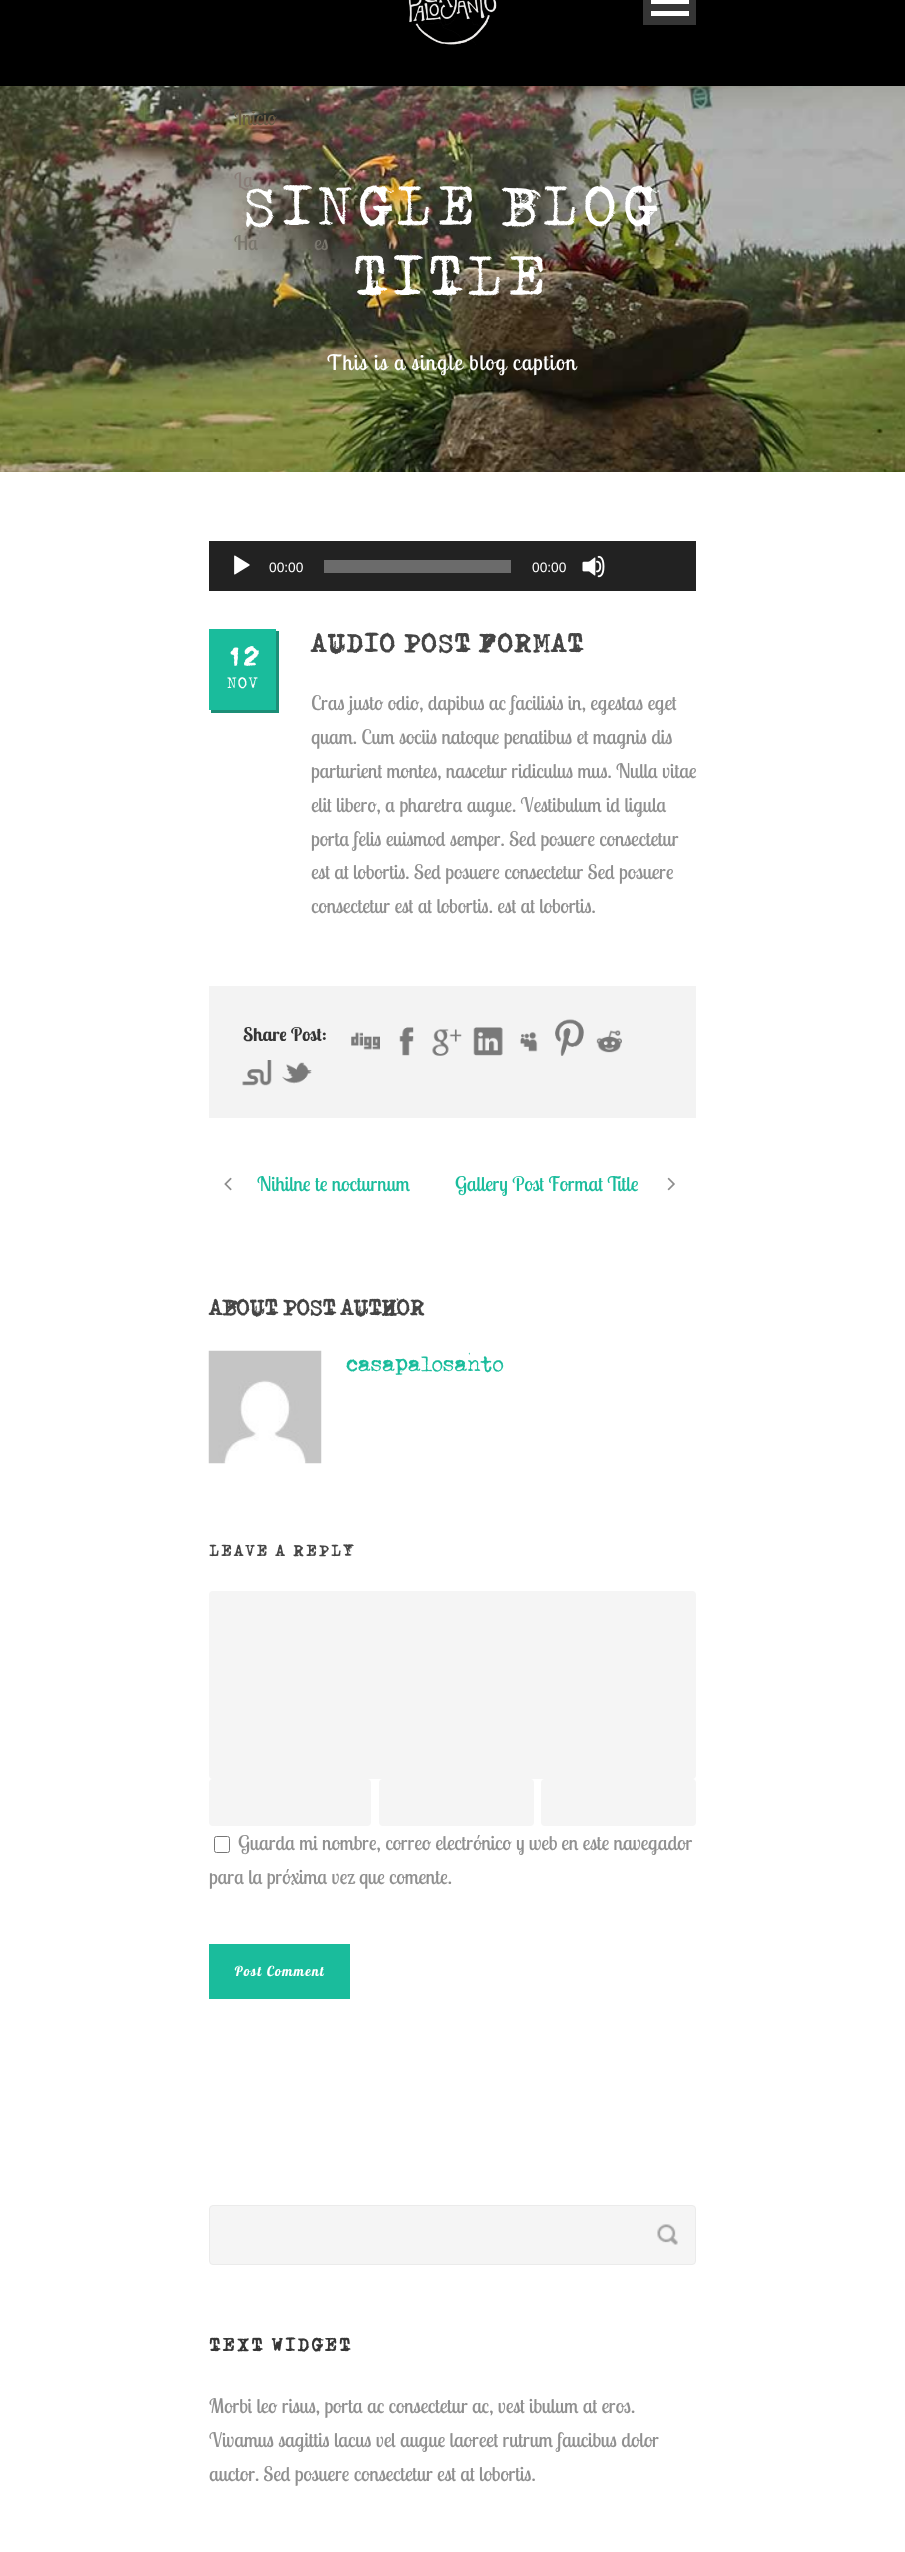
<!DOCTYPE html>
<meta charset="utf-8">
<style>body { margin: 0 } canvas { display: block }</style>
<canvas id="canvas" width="905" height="2552"></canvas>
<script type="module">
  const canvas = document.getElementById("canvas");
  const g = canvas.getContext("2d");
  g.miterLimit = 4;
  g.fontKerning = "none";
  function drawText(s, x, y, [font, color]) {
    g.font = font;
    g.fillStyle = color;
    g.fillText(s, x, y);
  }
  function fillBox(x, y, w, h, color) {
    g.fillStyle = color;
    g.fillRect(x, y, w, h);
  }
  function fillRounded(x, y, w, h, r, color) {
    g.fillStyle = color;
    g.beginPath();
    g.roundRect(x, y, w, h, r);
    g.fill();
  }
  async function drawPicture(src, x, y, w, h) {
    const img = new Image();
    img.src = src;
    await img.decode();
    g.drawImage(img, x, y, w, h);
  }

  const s1 = ["20px Lobster Two", "#695C45"];
  const s2 = ["20px Lobster Two", "#8A7E79"];
  const s3 = ["20px Lobster Two", "#79766D"];
  const s4 = ["53.75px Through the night", "#FFFFFF"];
  const s5 = ["21.25px Lobster Two", "#FFFFFF"];
  const s6 = ["13.75px Liberation Sans", "#FFFFFF"];
  const s7 = ["bold 25px Through the night", "#FFFFFF"];
  const s8 = ["15px Through the night", "#FFFFFF"];
  const s9 = ["bold 25px Through the night", "#454545"];
  const s10 = ["20px Lobster Two", "#909090"];
  const s11 = ["bold 18.75px Lobster Two", "#353535"];
  const s12 = ["20px Lobster Two", "#1ABC9C"];
  const s13 = ["bold 21.25px Through the night", "#454545"];
  const s14 = ["21.25px Through the night", "#1ABC9C"];
  const s15 = ["bold 15px Through the night", "#454545"];
  const s16 = ["italic bold 13.75px Lobster Two", "#FFFFFF"];
  const s17 = ["bold 17.5px Through the night", "#353535"];

  fillBox(0, 0, 905, 2552, "#FFFFFF");
  fillBox(0, 0, 905, 86, "#000000");
  await drawPicture("pic1.png", 408, 0, 89, 45);
  fillBox(643, 0, 53, 25, "#353535");
  fillBox(651, 11, 38, 5, "#FFFFFF");
  fillBox(651, 0, 38, 4, "#FFFFFF");
  await drawPicture("pic2.png", 0, 86, 905, 386);
  drawText("Inicio", 234, 125, s1);
  drawText("La", 234, 187, s2);
  drawText("Ha", 234, 250, s3);
  drawText("es", 314, 250, s3);
  g.letterSpacing = "6.25px";
  drawText("SINGLE BLOG", 243, 225, s4);
  drawText("TITLE", 353, 295, s4);
  g.letterSpacing = "1.25px";
  drawText("This is a single blog caption", 327, 370, s5);
  fillBox(209, 541, 487, 50, "#222222");
  await drawPicture("pic3.png", 234, 555, 16, 20);
  g.letterSpacing = "0px";
  drawText("00:00", 269, 572, s6);
  fillBox(324, 560, 187, 13, "#6B6B6B");
  drawText("00:00", 532, 572, s6);
  await drawPicture("pic4.png", 582, 555, 23, 23);
  g.fillStyle = "#1C8E77";
  g.beginPath();
  g.moveTo(211, 710);
  g.lineTo(211, 713);
  g.lineTo(279, 713);
  g.lineTo(279, 631);
  g.lineTo(276, 631);
  g.lineTo(276, 710);
  g.closePath();
  g.fill();
  fillBox(209, 629, 67, 81, "#1ABC9C");
  drawText("12", 227, 665, s7);
  g.letterSpacing = "1.25px";
  drawText("NOV", 227, 688, s8);
  drawText("AUDIO POST FORMAT", 311, 652, s9);
  g.letterSpacing = "0px";
  drawText("Cras justo odio, dapibus ac facilisis in, egestas eget", 311, 710, s10);
  drawText("quam. Cum sociis natoque penatibus et magnis dis", 311, 744, s10);
  drawText("parturient montes, nascetur ridiculus mus. Nulla vitae", 311, 778, s10);
  drawText("elit libero, a pharetra augue. Vestibulum id ligula", 311, 812, s10);
  drawText("porta felis euismod semper. Sed posuere consectetur", 311, 846, s10);
  drawText("est at lobortis. Sed posuere consectetur Sed posuere", 311, 879, s10);
  drawText("consectetur est at lobortis. est at lobortis.", 311, 913, s10);
  fillBox(209, 986, 487, 132, "#F3F3F3");
  drawText("Share Post:", 243, 1041, s11);
  await drawPicture("pic5.png", 351, 1032, 29, 18);
  await drawPicture("pic6.png", 399, 1027, 15, 29);
  await drawPicture("pic7.png", 432, 1029, 30, 27);
  await drawPicture("pic8.png", 473, 1027, 30, 29);
  await drawPicture("pic9.png", 520, 1032, 18, 20);
  await drawPicture("pic10.png", 555, 1019, 29, 37);
  await drawPicture("pic11.png", 596, 1030, 26, 23);
  await drawPicture("pic12.png", 242, 1060, 30, 26);
  await drawPicture("pic13.png", 282, 1062, 30, 22);
  await drawPicture("pic14.png", 224, 1177, 8, 14);
  drawText("Nihilne te nocturnum", 257, 1191, s12);
  drawText("Gallery Post Format Title", 455, 1191, s12);
  await drawPicture("pic15.png", 667, 1177, 8, 14);
  drawText("ABOUT POST AUTHOR", 209, 1315, s13);
  await drawPicture("pic16.png", 208, 1350, 114, 114);
  drawText("casapalosanto", 346, 1371, s14);
  g.letterSpacing = "2.5px";
  drawText("LEAVE A REPLY", 209, 1556, s15);
  fillRounded(209, 1591, 487, 188, 4, "#F5F5F5");
  fillRounded(209, 1779, 162, 47, 4, "#F5F5F5");
  fillRounded(379, 1779, 155, 47, 4, "#F5F5F5");
  fillRounded(541, 1779, 155, 47, 4, "#F5F5F5");
  g.beginPath();
  g.roundRect(214.5, 1836.5, 15, 16, 2);
  g.strokeStyle = "#767676";
  g.stroke();
  g.letterSpacing = "0px";
  drawText("Guarda mi nombre, correo electrónico y web en este navegador", 238, 1850, s10);
  drawText("para la próxima vez que comente.", 209, 1884, s10);
  fillBox(209, 1944, 141, 55, "#1ABC9C");
  g.letterSpacing = "1.25px";
  drawText("Post Comment", 234, 1976, s16);
  g.fillStyle = "#F5F5F5";
  g.beginPath();
  g.roundRect(209.5, 2205.5, 486, 59, 3.5);
  g.fill();
  g.strokeStyle = "#EBEBEB";
  g.stroke();
  await drawPicture("pic17.png", 657, 2224, 21, 21);
  g.letterSpacing = "2.5px";
  drawText("TEXT WIDGET", 209, 2351, s17);
  g.letterSpacing = "0px";
  drawText("Morbi leo risus, porta ac consectetur ac, vest ibulum at eros.", 209, 2413, s10);
  drawText("Vivamus sagittis lacus vel augue laoreet rutrum faucibus dolor", 209, 2447, s10);
  drawText("auctor. Sed posuere consectetur est at lobortis.", 209, 2481, s10);
</script>
